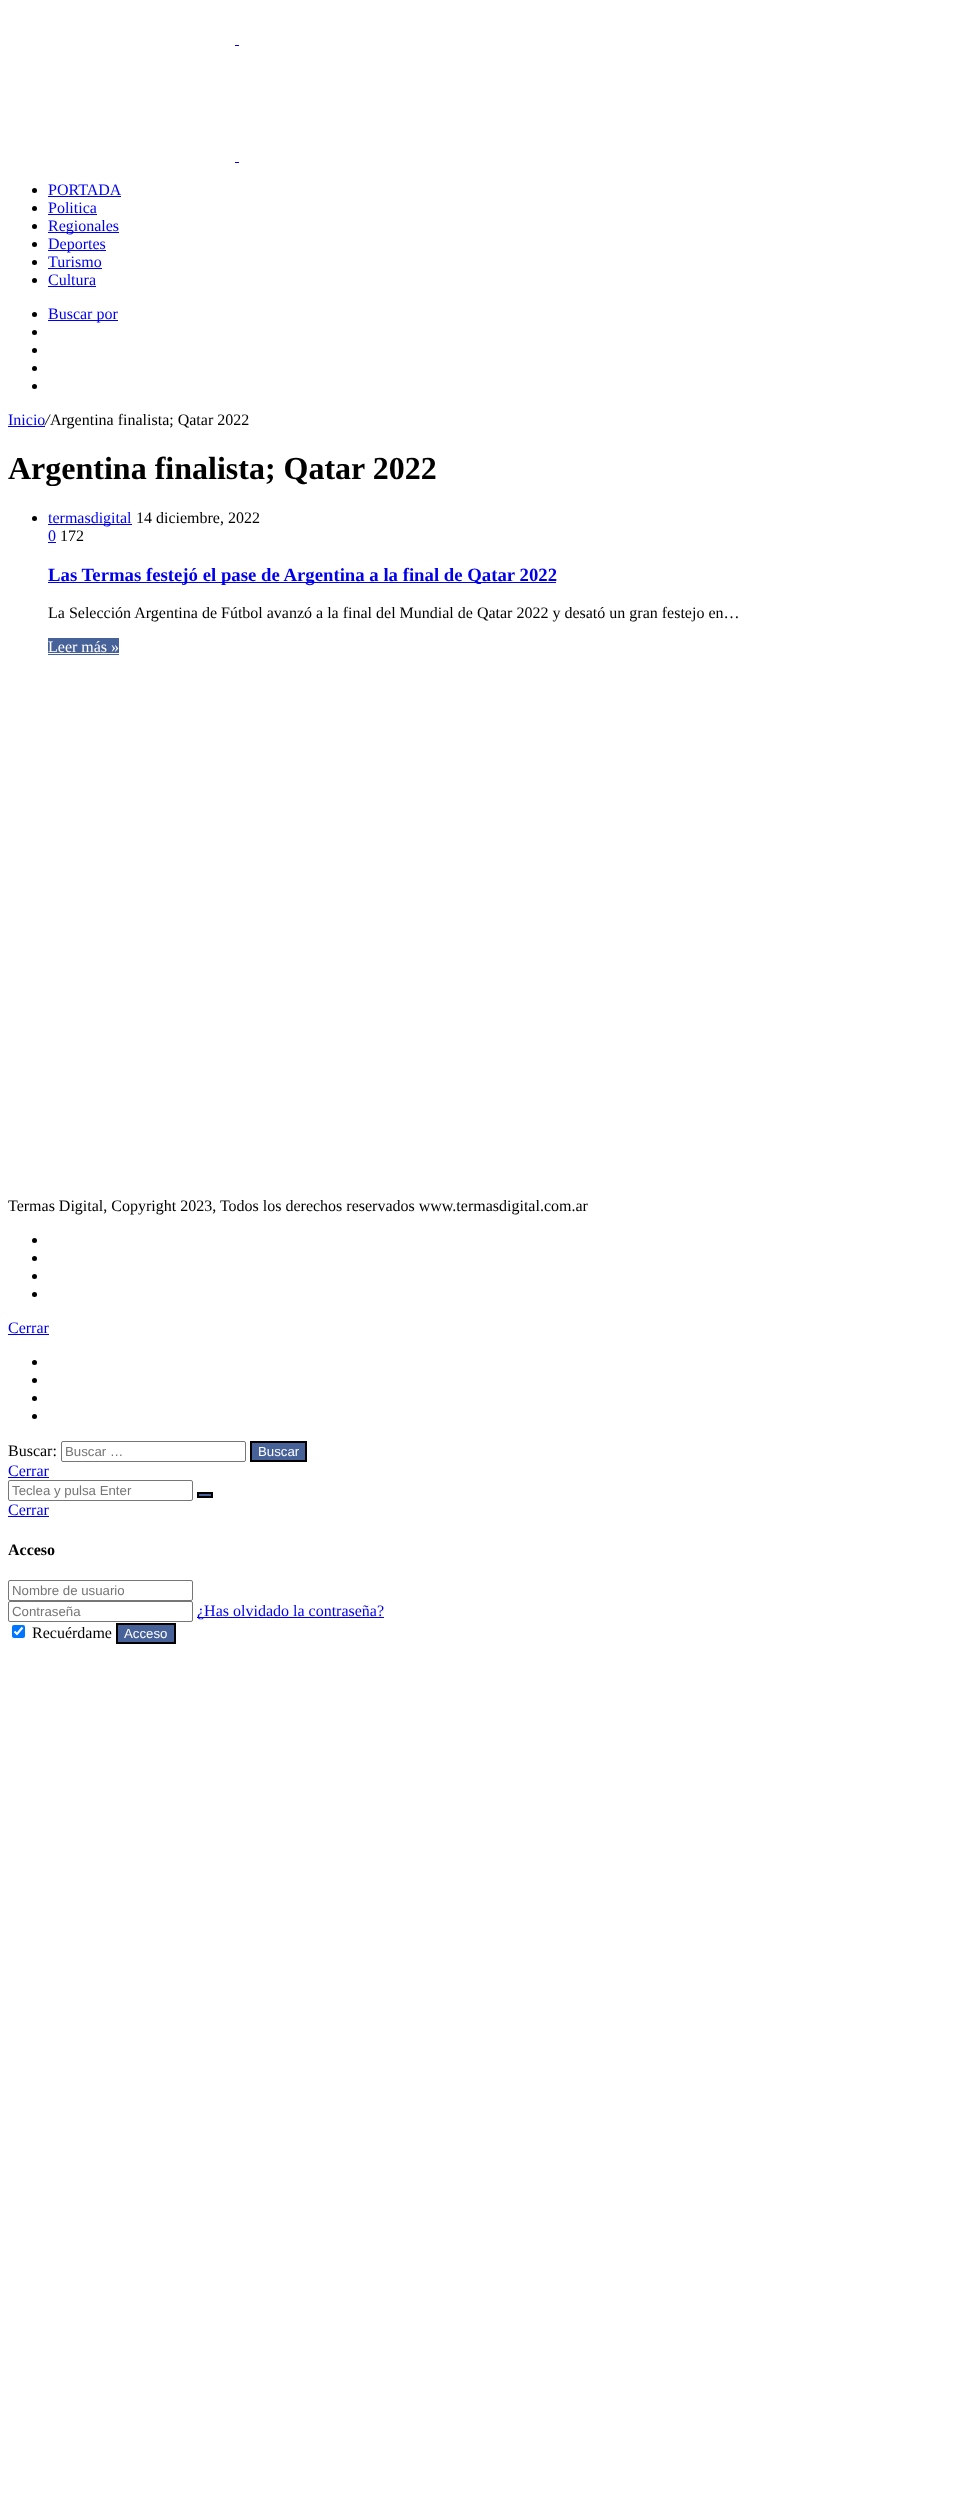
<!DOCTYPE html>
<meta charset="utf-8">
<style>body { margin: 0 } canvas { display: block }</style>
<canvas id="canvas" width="972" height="2500"></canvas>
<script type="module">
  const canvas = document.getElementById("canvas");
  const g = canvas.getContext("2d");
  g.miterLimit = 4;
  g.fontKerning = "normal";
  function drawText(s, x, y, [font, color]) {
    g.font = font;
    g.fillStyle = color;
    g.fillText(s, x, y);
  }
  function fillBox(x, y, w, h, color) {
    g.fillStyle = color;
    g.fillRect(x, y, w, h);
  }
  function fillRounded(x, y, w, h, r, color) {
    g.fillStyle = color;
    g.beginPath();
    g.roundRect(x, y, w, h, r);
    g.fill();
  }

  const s1 = ["16px Liberation Serif", "#0000EE"];
  const s2 = ["italic 16px Liberation Serif", "#000000"];
  const s3 = ["16px Liberation Serif", "#000000"];
  const s4 = ["bold 32px Liberation Serif", "#000000"];
  const s5 = ["bold 18.75px Liberation Serif", "#0000EE"];
  const s6 = ["16px Liberation Serif", "#FFFFFF"];
  const s7 = ["13.25px Liberation Sans", "#757575"];
  const s8 = ["13.25px Liberation Sans", "#FFFFFF"];
  const s9 = ["bold 16px Liberation Serif", "#000000"];

  fillBox(0, 0, 972, 2500, "#FFFFFF");
  fillBox(235, 45, 4, 1, "#0000EE");
  fillBox(235, 162, 4, 1, "#0000EE");
  g.fillStyle = "#000000";
  g.beginPath();
  g.arc(34.5, 190.5, 2.5, 0, Math.PI * 2);
  g.fill();
  drawText("PORTADA", 48, 195, s1);
  fillBox(48, 196, 73, 1, "#0000EE");
  g.fillStyle = "#000000";
  g.beginPath();
  g.arc(34.5, 208.5, 2.5, 0, Math.PI * 2);
  g.fill();
  drawText("Politica", 48, 213, s1);
  fillBox(48, 214, 49, 1, "#0000EE");
  g.fillStyle = "#000000";
  g.beginPath();
  g.arc(34.5, 226.5, 2.5, 0, Math.PI * 2);
  g.fill();
  fillBox(48, 232, 71, 1, "#0000EE");
  drawText("Regionales", 48, 231, s1);
  g.fillStyle = "#000000";
  g.beginPath();
  g.arc(34.5, 244.5, 2.5, 0, Math.PI * 2);
  g.fill();
  fillBox(48, 250, 58, 1, "#0000EE");
  drawText("Deportes", 48, 249, s1);
  g.fillStyle = "#000000";
  g.beginPath();
  g.arc(34.5, 262.5, 2.5, 0, Math.PI * 2);
  g.fill();
  drawText("Turismo", 48, 267, s1);
  fillBox(48, 268, 54, 1, "#0000EE");
  g.fillStyle = "#000000";
  g.beginPath();
  g.arc(34.5, 280.5, 2.5, 0, Math.PI * 2);
  g.fill();
  drawText("Cultura", 48, 285, s1);
  fillBox(48, 286, 48, 1, "#0000EE");
  g.fillStyle = "#000000";
  g.beginPath();
  g.arc(34.5, 314.5, 2.5, 0, Math.PI * 2);
  g.fill();
  fillBox(48, 320, 70, 1, "#0000EE");
  drawText("Buscar por", 48, 319, s1);
  g.fillStyle = "#000000";
  g.beginPath();
  g.arc(34.5, 332.5, 2.5, 0, Math.PI * 2);
  g.fill();
  g.beginPath();
  g.arc(34.5, 350.5, 2.5, 0, Math.PI * 2);
  g.fill();
  g.beginPath();
  g.arc(34.5, 368.5, 2.5, 0, Math.PI * 2);
  g.fill();
  g.beginPath();
  g.arc(34.5, 386.5, 2.5, 0, Math.PI * 2);
  g.fill();
  drawText("Inicio", 8, 425, s1);
  fillBox(8, 426, 37, 1, "#0000EE");
  drawText("/", 45, 425, s2);
  drawText("Argentina finalista; Qatar 2022", 50, 425, s3);
  drawText("Argentina finalista; Qatar 2022", 8, 479, s4);
  g.beginPath();
  g.arc(34.5, 518.5, 2.5, 0, Math.PI * 2);
  g.fill();
  fillBox(48, 524, 84, 1, "#0000EE");
  drawText("termasdigital", 48, 523, s1);
  drawText("14 diciembre, 2022", 136, 523, s3);
  drawText("0", 48, 541, s1);
  fillBox(48, 542, 8, 1, "#0000EE");
  drawText("172", 60, 541, s3);
  fillBox(48, 582, 508, 1, "#0000EE");
  drawText("Las Termas festejó el pase de Argentina a la final de Qatar 2022", 48, 581, s5);
  drawText("La Selección Argentina de Fútbol avanzó a la final del Mundial de Qatar 2022 y desató un gran festejo en…", 48, 618, s3);
  fillBox(48, 638, 71, 17, "#476199");
  drawText("Leer más »", 48, 652, s6);
  fillBox(48, 653, 71, 1, "#FFFFFF");
  drawText("Termas Digital, Copyright 2023, Todos los derechos reservados www.termasdigital.com.ar", 8, 1211, s3);
  g.beginPath();
  g.arc(34.5, 1240.5, 2.5, 0, Math.PI * 2);
  g.fill();
  g.beginPath();
  g.arc(34.5, 1258.5, 2.5, 0, Math.PI * 2);
  g.fill();
  g.beginPath();
  g.arc(34.5, 1276.5, 2.5, 0, Math.PI * 2);
  g.fill();
  g.beginPath();
  g.arc(34.5, 1294.5, 2.5, 0, Math.PI * 2);
  g.fill();
  drawText("Cerrar", 8, 1333, s1);
  fillBox(8, 1334, 41, 1, "#0000EE");
  g.fillStyle = "#000000";
  g.beginPath();
  g.arc(34.5, 1362.5, 2.5, 0, Math.PI * 2);
  g.fill();
  g.beginPath();
  g.arc(34.5, 1380.5, 2.5, 0, Math.PI * 2);
  g.fill();
  g.beginPath();
  g.arc(34.5, 1398.5, 2.5, 0, Math.PI * 2);
  g.fill();
  g.beginPath();
  g.arc(34.5, 1416.5, 2.5, 0, Math.PI * 2);
  g.fill();
  drawText("Buscar:", 8, 1456, s3);
  g.beginPath();
  g.roundRect(61.5, 1441.5, 184, 20, 1.5);
  g.strokeStyle = "#767676";
  g.stroke();
  drawText("Buscar …", 65, 1456, s7);
  g.fillStyle = "#476199";
  g.beginPath();
  g.rect(251, 1442, 55, 19);
  g.fill();
  g.strokeStyle = "#000000";
  g.lineWidth = 2;
  g.stroke();
  drawText("Buscar", 258, 1456, s8);
  drawText("Cerrar", 8, 1476, s1);
  fillBox(8, 1477, 41, 1, "#0000EE");
  g.beginPath();
  g.roundRect(8.5, 1480.5, 184, 20, 1.5);
  g.strokeStyle = "#767676";
  g.lineWidth = 1;
  g.stroke();
  drawText("Teclea y pulsa Enter", 12, 1495, s7);
  g.fillStyle = "#476199";
  g.beginPath();
  g.rect(198, 1493, 14, 4);
  g.fill();
  g.strokeStyle = "#000000";
  g.lineWidth = 2;
  g.stroke();
  drawText("Cerrar", 8, 1515, s1);
  fillBox(8, 1516, 41, 1, "#0000EE");
  drawText("Acceso", 8, 1555, s9);
  g.beginPath();
  g.roundRect(8.5, 1580.5, 184, 20, 1.5);
  g.strokeStyle = "#767676";
  g.lineWidth = 1;
  g.stroke();
  drawText("Nombre de usuario", 12, 1595, s7);
  g.beginPath();
  g.roundRect(8.5, 1601.5, 184, 20, 1.5);
  g.stroke();
  drawText("Contraseña", 12, 1616, s7);
  fillBox(197, 1617, 187, 1, "#0000EE");
  drawText("¿Has olvidado la contraseña?", 197, 1616, s1);
  fillRounded(12, 1625, 13, 13, 2, "#0075FF");
  g.beginPath();
  g.moveTo(14.5, 1631.5);
  g.lineTo(17, 1634);
  g.lineTo(22.5, 1627.5);
  g.strokeStyle = "#FFFFFF";
  g.lineWidth = 2.1;
  g.stroke();
  drawText("Recuérdame", 32, 1638, s3);
  g.fillStyle = "#476199";
  g.beginPath();
  g.rect(117, 1624, 58, 19);
  g.fill();
  g.strokeStyle = "#000000";
  g.lineWidth = 2;
  g.stroke();
  drawText("Acceso", 124, 1638, s8);
</script>
